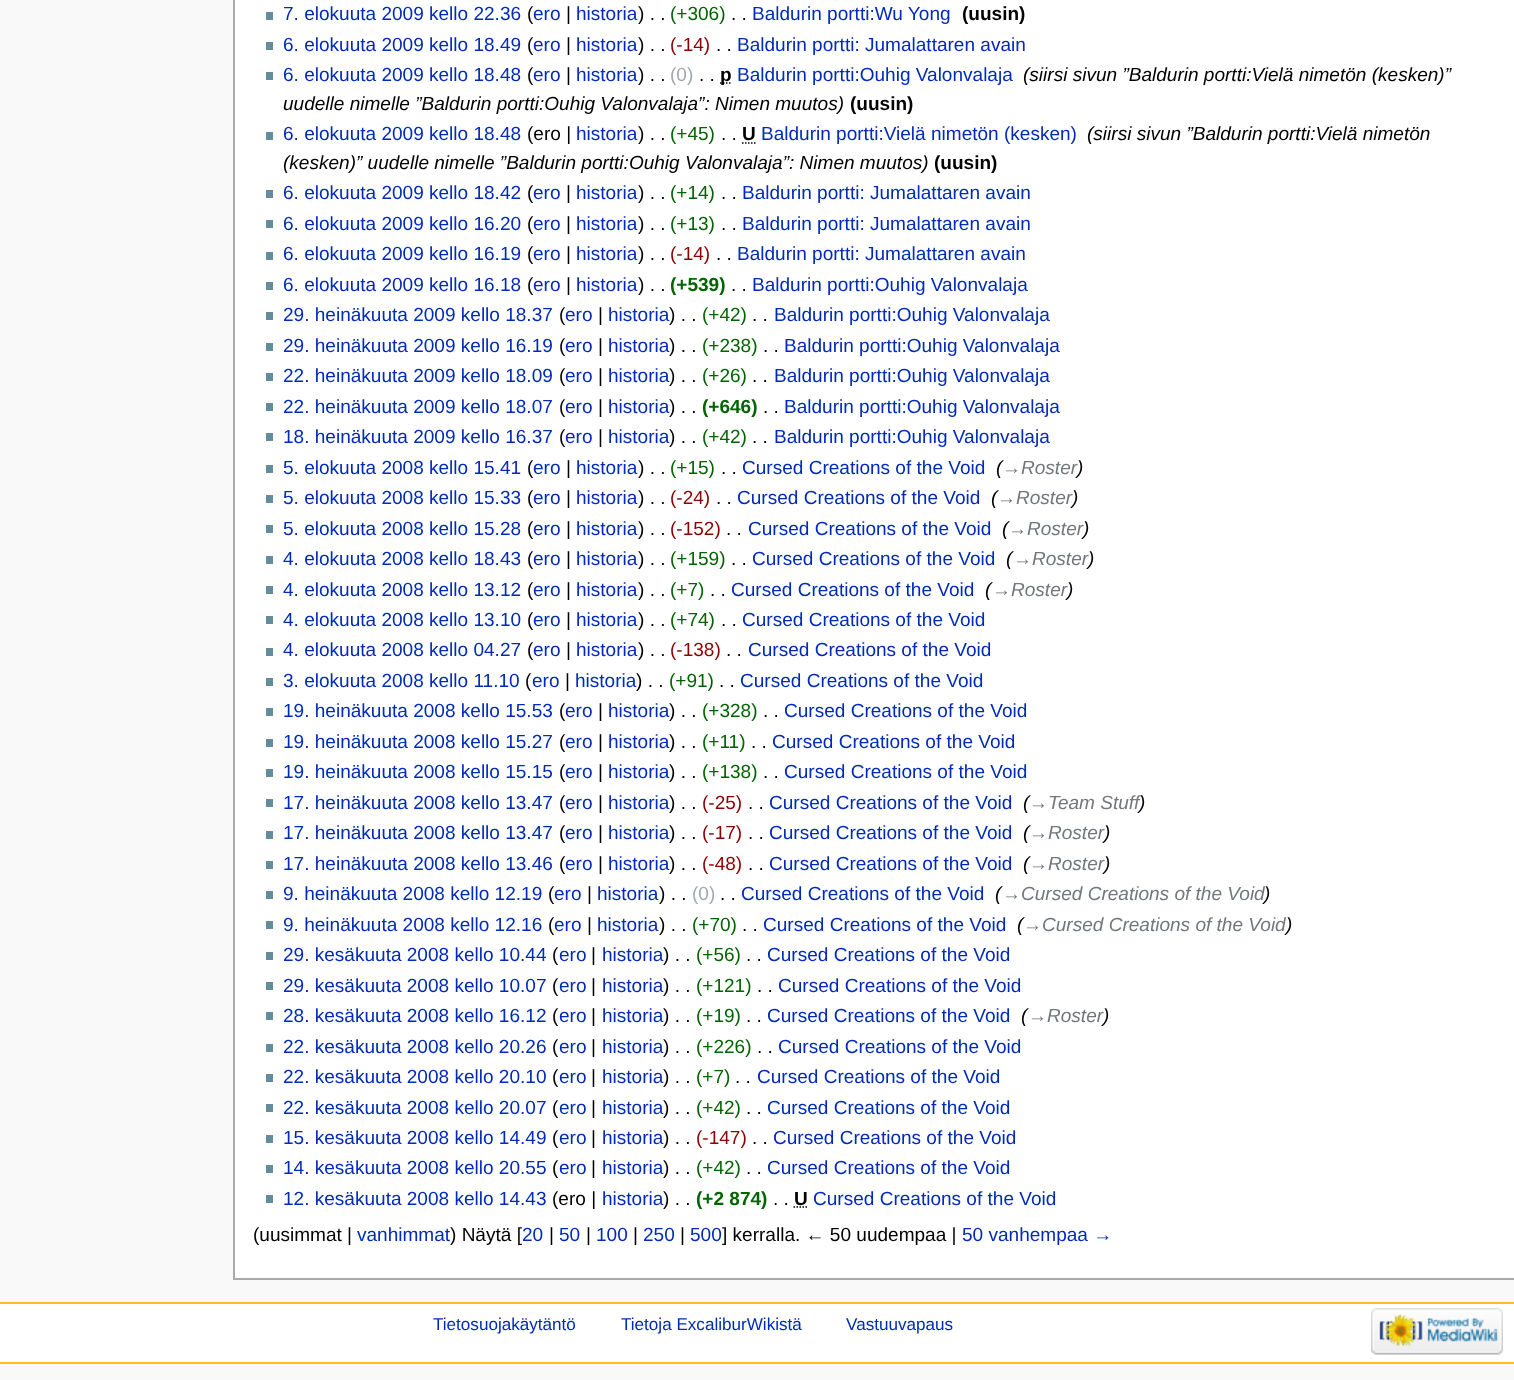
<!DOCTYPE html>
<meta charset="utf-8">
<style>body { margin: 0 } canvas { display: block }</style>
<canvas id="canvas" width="1514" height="1380"></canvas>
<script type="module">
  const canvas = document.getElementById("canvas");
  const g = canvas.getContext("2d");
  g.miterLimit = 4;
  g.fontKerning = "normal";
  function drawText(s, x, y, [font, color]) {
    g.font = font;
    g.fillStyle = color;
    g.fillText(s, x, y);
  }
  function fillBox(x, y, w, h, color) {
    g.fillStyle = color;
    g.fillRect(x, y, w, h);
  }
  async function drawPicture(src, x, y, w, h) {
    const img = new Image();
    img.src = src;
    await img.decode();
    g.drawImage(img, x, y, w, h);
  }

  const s1 = ["19.05px Liberation Sans", "#002BB8"];
  const s2 = ["19.05px Liberation Sans", "#000000"];
  const s3 = ["19.05px Liberation Sans", "#006400"];
  const s4 = ["bold 19.05px Liberation Sans", "#000000"];
  const s5 = ["19.05px Liberation Sans", "#8B0000"];
  const s6 = ["19.05px Liberation Sans", "#A2A9B1"];
  const s7 = ["italic 19.05px Liberation Sans", "#000000"];
  const s8 = ["bold 19.05px Liberation Sans", "#006400"];
  const s9 = ["italic 19.05px Liberation Sans", "#72777D"];
  const s10 = ["17.1px Liberation Sans", "#002BB8"];

  fillBox(0, 0, 1514, 1380, "#F9F9F9");
  fillBox(235, 0, 1279, 1278, "#FFFFFF");
  fillBox(233, 1278, 1281, 2, "#AAAAAA");
  fillBox(233, 0, 2, 1280, "#AAAAAA");
  fillBox(266, 12, 7, 8, "#638C9C");
  drawText("7. elokuuta 2009 kello 22.36", 283, 20, s1);
  drawText("(", 527, 20, s2);
  drawText("ero", 533, 20, s1);
  drawText("|", 566, 20, s2);
  drawText("historia", 576, 20, s1);
  drawText(") . .", 638, 20, s2);
  drawText("(+306)", 670, 20, s3);
  drawText(". .", 731, 20, s2);
  drawText("Baldurin portti:Wu Yong", 752, 20, s1);
  drawText("(uusin)", 962, 20, s4);
  fillBox(266, 42, 7, 8, "#638C9C");
  drawText("6. elokuuta 2009 kello 18.49", 283, 51, s1);
  drawText("(", 527, 51, s2);
  drawText("ero", 533, 51, s1);
  drawText("|", 566, 51, s2);
  drawText("historia", 576, 51, s1);
  drawText(") . .", 638, 51, s2);
  drawText("(-14)", 670, 51, s5);
  drawText(". .", 716, 51, s2);
  drawText("Baldurin portti: Jumalattaren avain", 737, 51, s1);
  fillBox(266, 72, 7, 8, "#638C9C");
  drawText("6. elokuuta 2009 kello 18.48", 283, 81, s1);
  drawText("(", 527, 81, s2);
  drawText("ero", 533, 81, s1);
  drawText("|", 566, 81, s2);
  drawText("historia", 576, 81, s1);
  drawText(") . .", 638, 81, s2);
  drawText("(0)", 670, 81, s6);
  drawText(". .", 699, 81, s2);
  g.beginPath();
  g.moveTo(720, 83);
  g.lineTo(732, 83);
  g.strokeStyle = "#000000";
  g.lineWidth = 1.5;
  g.setLineDash([1.5, 1.5]);
  g.stroke();
  drawText("p", 720, 81, s4);
  drawText("Baldurin portti:Ouhig Valonvalaja", 737, 81, s1);
  drawText("(siirsi sivun ”Baldurin portti:Vielä nimetön (kesken)”", 1023, 81, s7);
  drawText("uudelle nimelle ”Baldurin portti:Ouhig Valonvalaja”: Nimen muutos)", 283, 110, s7);
  drawText("(uusin)", 850, 110, s4);
  fillBox(266, 132, 7, 8, "#638C9C");
  drawText("6. elokuuta 2009 kello 18.48", 283, 140, s1);
  drawText("(ero |", 527, 140, s2);
  drawText("historia", 576, 140, s1);
  drawText(") . .", 638, 140, s2);
  drawText("(+45)", 670, 140, s3);
  drawText(". .", 721, 140, s2);
  drawText("U", 742, 140, s4);
  g.beginPath();
  g.moveTo(742, 143);
  g.lineTo(755.5, 143);
  g.stroke();
  drawText("Baldurin portti:Vielä nimetön (kesken)", 761, 140, s1);
  drawText("(siirsi sivun ”Baldurin portti:Vielä nimetön", 1087, 140, s7);
  drawText("(kesken)” uudelle nimelle ”Baldurin portti:Ouhig Valonvalaja”: Nimen muutos)", 283, 169, s7);
  drawText("(uusin)", 934, 169, s4);
  fillBox(266, 190, 7, 8, "#638C9C");
  drawText("6. elokuuta 2009 kello 18.42", 283, 199, s1);
  drawText("(", 527, 199, s2);
  drawText("ero", 533, 199, s1);
  drawText("|", 566, 199, s2);
  drawText("historia", 576, 199, s1);
  drawText(") . .", 638, 199, s2);
  drawText("(+14)", 670, 199, s3);
  drawText(". .", 721, 199, s2);
  drawText("Baldurin portti: Jumalattaren avain", 742, 199, s1);
  fillBox(266, 220, 7, 8, "#638C9C");
  drawText("6. elokuuta 2009 kello 16.20", 283, 230, s1);
  drawText("(", 527, 230, s2);
  drawText("ero", 533, 230, s1);
  drawText("|", 566, 230, s2);
  drawText("historia", 576, 230, s1);
  drawText(") . .", 638, 230, s2);
  drawText("(+13)", 670, 230, s3);
  drawText(". .", 721, 230, s2);
  drawText("Baldurin portti: Jumalattaren avain", 742, 230, s1);
  fillBox(266, 252, 7, 8, "#638C9C");
  drawText("6. elokuuta 2009 kello 16.19", 283, 260, s1);
  drawText("(", 527, 260, s2);
  drawText("ero", 533, 260, s1);
  drawText("|", 566, 260, s2);
  drawText("historia", 576, 260, s1);
  drawText(") . .", 638, 260, s2);
  drawText("(-14)", 670, 260, s5);
  drawText(". .", 716, 260, s2);
  drawText("Baldurin portti: Jumalattaren avain", 737, 260, s1);
  fillBox(266, 282, 7, 8, "#638C9C");
  drawText("6. elokuuta 2009 kello 16.18", 283, 291, s1);
  drawText("(", 527, 291, s2);
  drawText("ero", 533, 291, s1);
  drawText("|", 566, 291, s2);
  drawText("historia", 576, 291, s1);
  drawText(") . .", 638, 291, s2);
  drawText("(+539)", 670, 291, s8);
  drawText(". .", 731, 291, s2);
  drawText("Baldurin portti:Ouhig Valonvalaja", 752, 291, s1);
  fillBox(266, 312, 7, 8, "#638C9C");
  drawText("29. heinäkuuta 2009 kello 18.37", 283, 321, s1);
  drawText("(", 559, 321, s2);
  drawText("ero", 565, 321, s1);
  drawText("|", 598, 321, s2);
  drawText("historia", 608, 321, s1);
  drawText(") . .", 669, 321, s2);
  drawText("(+42)", 702, 321, s3);
  drawText(". .", 752, 321, s2);
  drawText("Baldurin portti:Ouhig Valonvalaja", 774, 321, s1);
  fillBox(266, 343, 7, 8, "#638C9C");
  drawText("29. heinäkuuta 2009 kello 16.19", 283, 352, s1);
  drawText("(", 559, 352, s2);
  drawText("ero", 565, 352, s1);
  drawText("|", 598, 352, s2);
  drawText("historia", 608, 352, s1);
  drawText(") . .", 669, 352, s2);
  drawText("(+238)", 702, 352, s3);
  drawText(". .", 763, 352, s2);
  drawText("Baldurin portti:Ouhig Valonvalaja", 784, 352, s1);
  fillBox(266, 373, 7, 8, "#638C9C");
  drawText("22. heinäkuuta 2009 kello 18.09", 283, 382, s1);
  drawText("(", 559, 382, s2);
  drawText("ero", 565, 382, s1);
  drawText("|", 598, 382, s2);
  drawText("historia", 608, 382, s1);
  drawText(") . .", 669, 382, s2);
  drawText("(+26)", 702, 382, s3);
  drawText(". .", 752, 382, s2);
  drawText("Baldurin portti:Ouhig Valonvalaja", 774, 382, s1);
  fillBox(266, 403, 7, 8, "#638C9C");
  drawText("22. heinäkuuta 2009 kello 18.07", 283, 413, s1);
  drawText("(", 559, 413, s2);
  drawText("ero", 565, 413, s1);
  drawText("|", 598, 413, s2);
  drawText("historia", 608, 413, s1);
  drawText(") . .", 669, 413, s2);
  drawText("(+646)", 702, 413, s8);
  drawText(". .", 763, 413, s2);
  drawText("Baldurin portti:Ouhig Valonvalaja", 784, 413, s1);
  fillBox(266, 433, 7, 8, "#638C9C");
  drawText("18. heinäkuuta 2009 kello 16.37", 283, 443, s1);
  drawText("(", 559, 443, s2);
  drawText("ero", 565, 443, s1);
  drawText("|", 598, 443, s2);
  drawText("historia", 608, 443, s1);
  drawText(") . .", 669, 443, s2);
  drawText("(+42)", 702, 443, s3);
  drawText(". .", 752, 443, s2);
  drawText("Baldurin portti:Ouhig Valonvalaja", 774, 443, s1);
  fillBox(266, 465, 7, 8, "#638C9C");
  drawText("5. elokuuta 2008 kello 15.41", 283, 474, s1);
  drawText("(", 527, 474, s2);
  drawText("ero", 533, 474, s1);
  drawText("|", 566, 474, s2);
  drawText("historia", 576, 474, s1);
  drawText(") . .", 638, 474, s2);
  drawText("(+15)", 670, 474, s3);
  drawText(". .", 721, 474, s2);
  drawText("Cursed Creations of the Void", 742, 474, s1);
  drawText("(", 996, 474, s7);
  drawText("→Roster", 1002, 474, s9);
  drawText(")", 1077, 474, s7);
  fillBox(266, 495, 7, 8, "#638C9C");
  drawText("5. elokuuta 2008 kello 15.33", 283, 504, s1);
  drawText("(", 527, 504, s2);
  drawText("ero", 533, 504, s1);
  drawText("|", 566, 504, s2);
  drawText("historia", 576, 504, s1);
  drawText(") . .", 638, 504, s2);
  drawText("(-24)", 670, 504, s5);
  drawText("Cursed Creations of the Void", 737, 504, s1);
  drawText("(", 991, 504, s7);
  drawText("→Roster", 997, 504, s9);
  drawText(". .", 716, 504, s2);
  drawText(")", 1072, 504, s7);
  fillBox(266, 525, 7, 8, "#638C9C");
  drawText("5. elokuuta 2008 kello 15.28", 283, 535, s1);
  drawText("(", 527, 535, s2);
  drawText("ero", 533, 535, s1);
  drawText("|", 566, 535, s2);
  drawText("historia", 576, 535, s1);
  drawText(") . .", 638, 535, s2);
  drawText("(-152)", 670, 535, s5);
  drawText(". .", 726, 535, s2);
  drawText("Cursed Creations of the Void", 748, 535, s1);
  drawText("(", 1002, 535, s7);
  drawText("→Roster", 1008, 535, s9);
  drawText(")", 1083, 535, s7);
  fillBox(266, 556, 7, 8, "#638C9C");
  drawText("4. elokuuta 2008 kello 18.43", 283, 565, s1);
  drawText("(", 527, 565, s2);
  drawText("ero", 533, 565, s1);
  drawText("|", 566, 565, s2);
  drawText("historia", 576, 565, s1);
  drawText(") . .", 638, 565, s2);
  drawText("(+159)", 670, 565, s3);
  drawText("Cursed Creations of the Void", 752, 565, s1);
  drawText("(", 1006, 565, s7);
  drawText("→Roster", 1013, 565, s9);
  drawText(". .", 731, 565, s2);
  drawText(")", 1088, 565, s7);
  fillBox(266, 586, 7, 8, "#638C9C");
  drawText("4. elokuuta 2008 kello 13.12", 283, 596, s1);
  drawText("(", 527, 596, s2);
  drawText("ero", 533, 596, s1);
  drawText("|", 566, 596, s2);
  drawText("historia", 576, 596, s1);
  drawText(") . .", 638, 596, s2);
  drawText("(+7)", 670, 596, s3);
  drawText("Cursed Creations of the Void", 731, 596, s1);
  drawText("(", 985, 596, s7);
  drawText("→Roster", 992, 596, s9);
  drawText(". .", 710, 596, s2);
  drawText(")", 1067, 596, s7);
  fillBox(266, 616, 7, 8, "#638C9C");
  drawText("4. elokuuta 2008 kello 13.10", 283, 626, s1);
  drawText("(", 527, 626, s2);
  drawText("ero", 533, 626, s1);
  drawText("|", 566, 626, s2);
  drawText("historia", 576, 626, s1);
  drawText(") . .", 638, 626, s2);
  drawText("(+74)", 670, 626, s3);
  drawText(". .", 721, 626, s2);
  drawText("Cursed Creations of the Void", 742, 626, s1);
  fillBox(266, 648, 7, 8, "#638C9C");
  drawText("4. elokuuta 2008 kello 04.27", 283, 656, s1);
  drawText("(", 527, 656, s2);
  drawText("ero", 533, 656, s1);
  drawText("|", 566, 656, s2);
  drawText("historia", 576, 656, s1);
  drawText(") . .", 638, 656, s2);
  drawText("(-138)", 670, 656, s5);
  drawText(". .", 726, 656, s2);
  drawText("Cursed Creations of the Void", 748, 656, s1);
  fillBox(266, 678, 7, 8, "#638C9C");
  drawText("3. elokuuta 2008 kello 11.10", 283, 687, s1);
  drawText("(", 525, 687, s2);
  drawText("ero", 532, 687, s1);
  drawText("|", 565, 687, s2);
  drawText("historia", 575, 687, s1);
  drawText(") . .", 636, 687, s2);
  drawText("(+91)", 669, 687, s3);
  drawText(". .", 719, 687, s2);
  drawText("Cursed Creations of the Void", 740, 687, s1);
  fillBox(266, 708, 7, 8, "#638C9C");
  drawText("19. heinäkuuta 2008 kello 15.53", 283, 717, s1);
  drawText("(", 559, 717, s2);
  drawText("ero", 565, 717, s1);
  drawText("|", 598, 717, s2);
  drawText("historia", 608, 717, s1);
  drawText(") . .", 669, 717, s2);
  drawText("(+328)", 702, 717, s3);
  drawText(". .", 763, 717, s2);
  drawText("Cursed Creations of the Void", 784, 717, s1);
  fillBox(266, 739, 7, 8, "#638C9C");
  drawText("19. heinäkuuta 2008 kello 15.27", 283, 748, s1);
  drawText("(", 559, 748, s2);
  drawText("ero", 565, 748, s1);
  drawText("|", 598, 748, s2);
  drawText("historia", 608, 748, s1);
  drawText(") . .", 669, 748, s2);
  drawText("(+11)", 702, 748, s3);
  drawText(". .", 751, 748, s2);
  drawText("Cursed Creations of the Void", 772, 748, s1);
  fillBox(266, 769, 7, 8, "#638C9C");
  drawText("19. heinäkuuta 2008 kello 15.15", 283, 778, s1);
  drawText("(", 559, 778, s2);
  drawText("ero", 565, 778, s1);
  drawText("|", 598, 778, s2);
  drawText("historia", 608, 778, s1);
  drawText(") . .", 669, 778, s2);
  drawText("(+138)", 702, 778, s3);
  drawText(". .", 763, 778, s2);
  drawText("Cursed Creations of the Void", 784, 778, s1);
  fillBox(266, 799, 7, 8, "#638C9C");
  drawText("17. heinäkuuta 2008 kello 13.47", 283, 809, s1);
  drawText("(", 559, 809, s2);
  drawText("ero", 565, 809, s1);
  drawText("|", 598, 809, s2);
  drawText("historia", 608, 809, s1);
  drawText(") . .", 669, 809, s2);
  drawText("(-25)", 702, 809, s5);
  drawText("Cursed Creations of the Void", 769, 809, s1);
  drawText("(", 1023, 809, s7);
  drawText("→Team Stuff", 1029, 809, s9);
  drawText(". .", 748, 809, s2);
  drawText(")", 1139, 809, s7);
  fillBox(266, 831, 7, 8, "#638C9C");
  drawText("17. heinäkuuta 2008 kello 13.47", 283, 839, s1);
  drawText("(", 559, 839, s2);
  drawText("ero", 565, 839, s1);
  drawText("|", 598, 839, s2);
  drawText("historia", 608, 839, s1);
  drawText(") . .", 669, 839, s2);
  drawText("(-17)", 702, 839, s5);
  drawText(". .", 748, 839, s2);
  drawText("Cursed Creations of the Void", 769, 839, s1);
  drawText("(", 1023, 839, s7);
  drawText("→Roster", 1029, 839, s9);
  drawText(")", 1104, 839, s7);
  fillBox(266, 861, 7, 8, "#638C9C");
  drawText("17. heinäkuuta 2008 kello 13.46", 283, 870, s1);
  drawText("(", 559, 870, s2);
  drawText("ero", 565, 870, s1);
  drawText("|", 598, 870, s2);
  drawText("historia", 608, 870, s1);
  drawText(") . .", 669, 870, s2);
  drawText("(-48)", 702, 870, s5);
  drawText(". .", 748, 870, s2);
  drawText("Cursed Creations of the Void", 769, 870, s1);
  drawText("(", 1023, 870, s7);
  drawText("→Roster", 1029, 870, s9);
  drawText(")", 1104, 870, s7);
  fillBox(266, 891, 7, 8, "#638C9C");
  drawText("9. heinäkuuta 2008 kello 12.19", 283, 900, s1);
  drawText("(", 548, 900, s2);
  drawText("ero", 554, 900, s1);
  drawText("|", 587, 900, s2);
  drawText("historia", 597, 900, s1);
  drawText(") . .", 659, 900, s2);
  drawText("(0)", 692, 900, s6);
  drawText("Cursed Creations of the Void", 741, 900, s1);
  drawText("(", 995, 900, s7);
  drawText("→Cursed Creations of the Void", 1002, 900, s9);
  drawText(". .", 720, 900, s2);
  drawText(")", 1264, 900, s7);
  fillBox(266, 921, 7, 8, "#638C9C");
  drawText("9. heinäkuuta 2008 kello 12.16", 283, 931, s1);
  drawText("(", 548, 931, s2);
  drawText("ero", 554, 931, s1);
  drawText("|", 587, 931, s2);
  drawText("historia", 597, 931, s1);
  drawText(") . .", 659, 931, s2);
  drawText("(+70)", 692, 931, s3);
  drawText(". .", 742, 931, s2);
  drawText("Cursed Creations of the Void", 763, 931, s1);
  drawText("(", 1017, 931, s7);
  drawText("→Cursed Creations of the Void", 1023, 931, s9);
  drawText(")", 1286, 931, s7);
  fillBox(266, 952, 7, 8, "#638C9C");
  drawText("29. kesäkuuta 2008 kello 10.44", 283, 961, s1);
  drawText("(", 552, 961, s2);
  drawText("ero", 559, 961, s1);
  drawText("|", 591, 961, s2);
  drawText("historia", 602, 961, s1);
  drawText(") . .", 663, 961, s2);
  drawText("(+56)", 696, 961, s3);
  drawText(". .", 746, 961, s2);
  drawText("Cursed Creations of the Void", 767, 961, s1);
  fillBox(266, 982, 7, 8, "#638C9C");
  drawText("29. kesäkuuta 2008 kello 10.07", 283, 992, s1);
  drawText("(", 552, 992, s2);
  drawText("ero", 559, 992, s1);
  drawText("|", 591, 992, s2);
  drawText("historia", 602, 992, s1);
  drawText(") . .", 663, 992, s2);
  drawText("(+121)", 696, 992, s3);
  drawText(". .", 757, 992, s2);
  drawText("Cursed Creations of the Void", 778, 992, s1);
  fillBox(266, 1012, 7, 8, "#638C9C");
  drawText("28. kesäkuuta 2008 kello 16.12", 283, 1022, s1);
  drawText("(", 552, 1022, s2);
  drawText("ero", 559, 1022, s1);
  drawText("|", 591, 1022, s2);
  drawText("historia", 602, 1022, s1);
  drawText(") . .", 663, 1022, s2);
  drawText("(+19)", 696, 1022, s3);
  drawText("Cursed Creations of the Void", 767, 1022, s1);
  drawText("(", 1021, 1022, s7);
  drawText("→Roster", 1028, 1022, s9);
  drawText(". .", 746, 1022, s2);
  drawText(")", 1103, 1022, s7);
  fillBox(266, 1044, 7, 8, "#638C9C");
  drawText("22. kesäkuuta 2008 kello 20.26", 283, 1053, s1);
  drawText("(", 552, 1053, s2);
  drawText("ero", 559, 1053, s1);
  drawText("|", 591, 1053, s2);
  drawText("historia", 602, 1053, s1);
  drawText(") . .", 663, 1053, s2);
  drawText("(+226)", 696, 1053, s3);
  drawText(". .", 757, 1053, s2);
  drawText("Cursed Creations of the Void", 778, 1053, s1);
  fillBox(266, 1074, 7, 8, "#638C9C");
  drawText("22. kesäkuuta 2008 kello 20.10", 283, 1083, s1);
  drawText("(", 552, 1083, s2);
  drawText("ero", 559, 1083, s1);
  drawText("|", 591, 1083, s2);
  drawText("historia", 602, 1083, s1);
  drawText(") . .", 663, 1083, s2);
  drawText("(+7)", 696, 1083, s3);
  drawText(". .", 735, 1083, s2);
  drawText("Cursed Creations of the Void", 757, 1083, s1);
  fillBox(266, 1104, 7, 8, "#638C9C");
  drawText("22. kesäkuuta 2008 kello 20.07", 283, 1114, s1);
  drawText("(", 552, 1114, s2);
  drawText("ero", 559, 1114, s1);
  drawText("|", 591, 1114, s2);
  drawText("historia", 602, 1114, s1);
  drawText(") . .", 663, 1114, s2);
  drawText("(+42)", 696, 1114, s3);
  drawText(". .", 746, 1114, s2);
  drawText("Cursed Creations of the Void", 767, 1114, s1);
  fillBox(266, 1135, 7, 8, "#638C9C");
  drawText("15. kesäkuuta 2008 kello 14.49", 283, 1144, s1);
  drawText("(", 552, 1144, s2);
  drawText("ero", 559, 1144, s1);
  drawText("|", 591, 1144, s2);
  drawText("historia", 602, 1144, s1);
  drawText(") . .", 663, 1144, s2);
  drawText("(-147)", 696, 1144, s5);
  drawText(". .", 752, 1144, s2);
  drawText("Cursed Creations of the Void", 773, 1144, s1);
  fillBox(266, 1165, 7, 8, "#638C9C");
  drawText("14. kesäkuuta 2008 kello 20.55", 283, 1174, s1);
  drawText("(", 552, 1174, s2);
  drawText("ero", 559, 1174, s1);
  drawText("|", 591, 1174, s2);
  drawText("historia", 602, 1174, s1);
  drawText(") . .", 663, 1174, s2);
  drawText("(+42)", 696, 1174, s3);
  drawText(". .", 746, 1174, s2);
  drawText("Cursed Creations of the Void", 767, 1174, s1);
  fillBox(266, 1195, 7, 8, "#638C9C");
  drawText("12. kesäkuuta 2008 kello 14.43", 283, 1205, s1);
  drawText("(ero |", 552, 1205, s2);
  drawText("historia", 602, 1205, s1);
  drawText(") . .", 663, 1205, s2);
  drawText("(+2 874)", 696, 1205, s8);
  drawText(". .", 773, 1205, s2);
  drawText("U", 794, 1205, s4);
  g.beginPath();
  g.moveTo(793.5, 1207);
  g.lineTo(807.5, 1207);
  g.stroke();
  drawText("Cursed Creations of the Void", 813, 1205, s1);
  drawText("(uusimmat |", 253, 1241, s2);
  drawText("vanhimmat", 357, 1241, s1);
  drawText(") Näytä [", 450, 1241, s2);
  drawText("20", 522, 1241, s1);
  drawText("|", 549, 1241, s2);
  drawText("50", 559, 1241, s1);
  drawText("|", 586, 1241, s2);
  drawText("100", 596, 1241, s1);
  drawText("|", 633, 1241, s2);
  drawText("250", 643, 1241, s1);
  drawText("|", 680, 1241, s2);
  drawText("500", 690, 1241, s1);
  drawText("] kerralla. ← 50 uudempaa |", 722, 1241, s2);
  drawText("50 vanhempaa →", 962, 1241, s1);
  fillBox(0, 1304, 1514, 58, "#FFFFFF");
  fillBox(0, 1302, 1514, 2, "#FABD23");
  fillBox(0, 1362, 1514, 2, "#FABD23");
  drawText("Tietosuojakäytäntö", 433, 1330, s10);
  drawText("Tietoja ExcaliburWikistä", 621, 1330, s10);
  drawText("Vastuuvapaus", 846, 1330, s10);
  await drawPicture("pic1.png", 1371, 1308, 132, 47);
</script>
